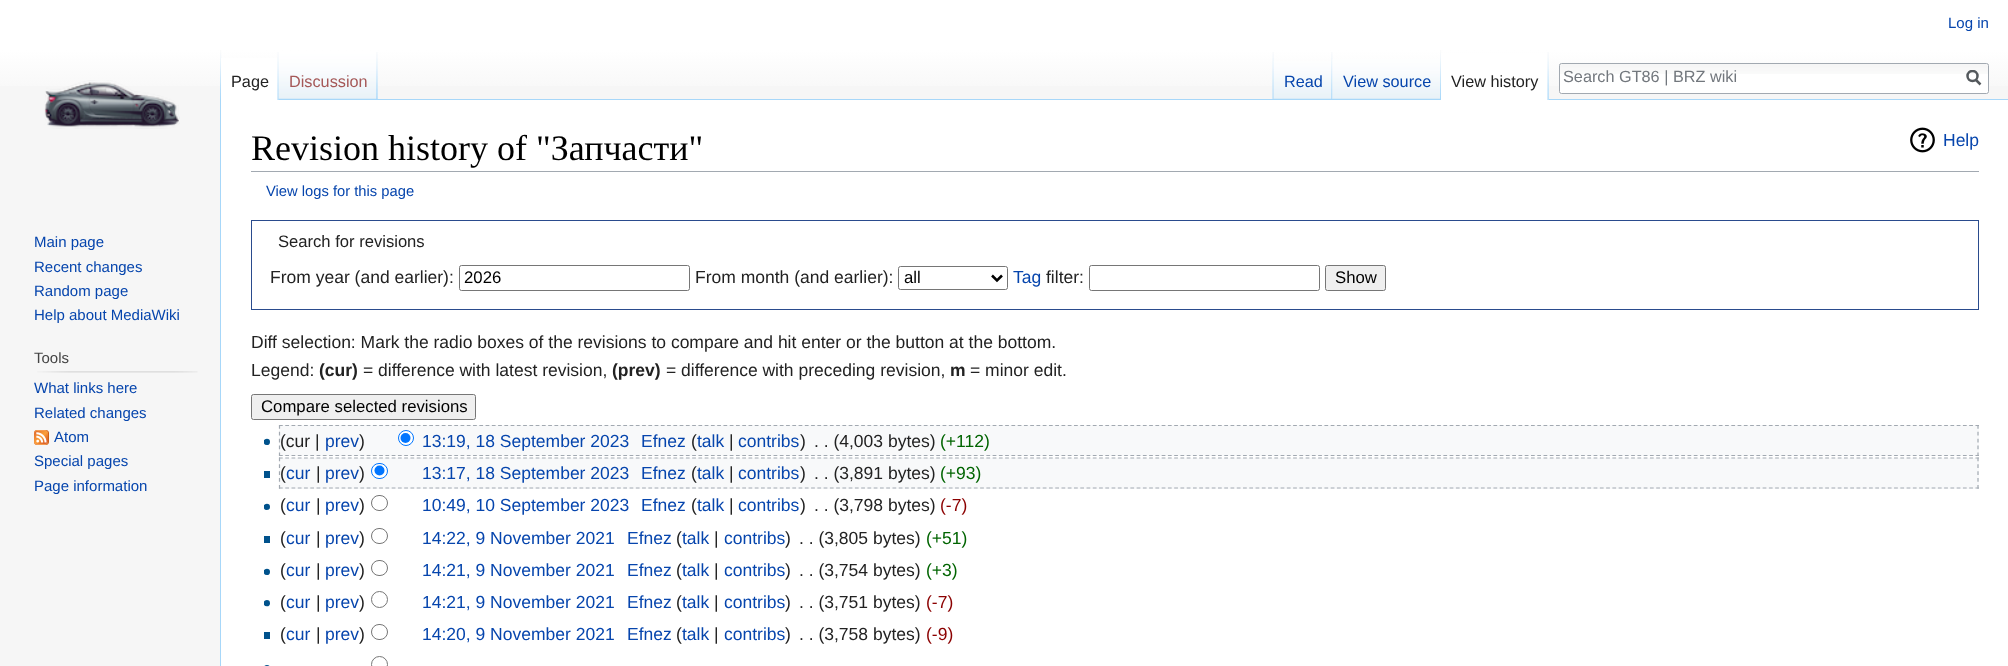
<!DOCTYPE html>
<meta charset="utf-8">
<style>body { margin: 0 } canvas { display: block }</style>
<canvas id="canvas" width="2008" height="666"></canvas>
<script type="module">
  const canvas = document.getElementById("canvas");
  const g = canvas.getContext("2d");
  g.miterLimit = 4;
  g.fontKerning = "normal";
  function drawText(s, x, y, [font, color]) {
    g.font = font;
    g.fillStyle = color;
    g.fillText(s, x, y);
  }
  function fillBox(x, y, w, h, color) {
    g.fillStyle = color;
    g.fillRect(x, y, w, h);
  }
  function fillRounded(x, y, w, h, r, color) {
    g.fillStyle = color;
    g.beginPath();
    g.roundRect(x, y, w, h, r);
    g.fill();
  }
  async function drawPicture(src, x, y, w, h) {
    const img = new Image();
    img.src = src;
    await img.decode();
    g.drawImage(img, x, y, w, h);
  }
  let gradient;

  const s1 = ["15px Liberation Sans", "#0645AD"];
  const s2 = ["16.25px Liberation Sans", "#222222"];
  const s3 = ["16.25px Liberation Sans", "#A55858"];
  const s4 = ["16.25px Liberation Sans", "#0645AD"];
  const s5 = ["16.25px Liberation Sans", "#72777D"];
  const s6 = ["15px Liberation Sans", "#444444"];
  const s7 = ["36px Liberation Serif", "#000000"];
  const s8 = ["17.5px Liberation Sans", "#0645AD"];
  const s9 = ["14.75px Liberation Sans", "#0645AD"];
  const s10 = ["16.6px Liberation Sans", "#222222"];
  const s11 = ["17.5px Liberation Sans", "#222222"];
  const s12 = ["16.75px Liberation Sans", "#000000"];
  const s13 = ["bold 17.5px Liberation Sans", "#222222"];
  const s14 = ["17.5px Liberation Sans", "#006400"];
  const s15 = ["17.5px Liberation Sans", "#8B0000"];

  fillBox(0, 0, 2008, 666, "#F6F6F6");
  gradient = g.createLinearGradient(1004, 0, 1004, 100);
  gradient.addColorStop(0.5, "#FFFFFF");
  gradient.addColorStop(1, "#F6F6F6");
  g.fillStyle = gradient;
  g.fillRect(0, 0, 2008, 86);
  drawText("Log in", 1948, 28, s1);
  await drawPicture("pic1.png", 220, 50, 2, 49);
  await drawPicture("pic2.png", 377, 52, 1, 47);
  fillBox(221, 58, 58, 42, "#FFFFFF");
  await drawPicture("pic3.png", 277, 52, 2, 48);
  drawText("Page", 231, 87, s2);
  fillBox(377, 99, 1631, 1, "#A7D7F9");
  await drawPicture("pic4.png", 278, 52, 100, 48);
  await drawPicture("pic5.png", 376, 52, 2, 47);
  drawText("Discussion", 289, 87, s3);
  await drawPicture("pic6.png", 1272, 52, 2, 47);
  await drawPicture("pic7.png", 1273, 61, 60, 38);
  await drawPicture("pic8.png", 1331, 52, 2, 47);
  drawText("Read", 1284, 87, s4);
  await drawPicture("pic9.png", 1332, 59, 108, 40);
  await drawPicture("pic10.png", 1440, 50, 2, 49);
  drawText("View source", 1343, 87, s4);
  fillBox(1441, 53, 108, 47, "#FFFFFF");
  await drawPicture("pic11.png", 1547, 52, 2, 48);
  drawText("View history", 1451, 87, s2);
  fillRounded(1559, 63, 430, 31, 2.5, "#FFFFFF");
  await drawPicture("pic12.png", 1559, 64, 430, 10);
  g.beginPath();
  g.roundRect(1559.5, 63.5, 429, 30, 2);
  g.strokeStyle = "#A2A9B1";
  g.stroke();
  drawText("Search GT86 | BRZ wiki", 1563, 82, s5);
  g.beginPath();
  g.moveTo(1980.5, 84.5);
  g.lineTo(1975.5, 79.5);
  g.strokeStyle = "#54595D";
  g.lineWidth = 2.5;
  g.stroke();
  g.save();
  g.beginPath();
  g.rect(1966, 70, 15, 16);
  g.clip();
  g.beginPath();
  g.arc(1972.5, 76, 5, 0, Math.PI * 2);
  g.stroke();
  g.restore();
  await drawPicture("pic13.png", 44, 80, 136, 49);
  drawText("Main page", 34, 247, s1);
  drawText("Recent changes", 34, 272, s1);
  drawText("Random page", 34, 296, s1);
  drawText("Help about MediaWiki", 34, 320, s1);
  drawText("Tools", 34, 363, s6);
  await drawPicture("pic14.png", 37, 371, 161, 2);
  drawText("What links here", 34, 393, s1);
  drawText("Related changes", 34, 418, s1);
  await drawPicture("pic15.png", 34, 430, 15, 15);
  drawText("Atom", 54, 442, s1);
  drawText("Special pages", 34, 466, s1);
  drawText("Page information", 34, 491, s1);
  fillBox(221, 100, 1787, 566, "#FFFFFF");
  fillBox(220, 99, 1, 567, "#A7D7F9");
  fillBox(251, 171, 1728, 1, "#A2A9B1");
  drawText("Revision history of \"Запчасти\"", 251, 160, s7);
  await drawPicture("pic16.png", 1910, 127, 25, 26);
  drawText("Help", 1943, 146, s8);
  drawText("View logs for this page", 266, 196, s9);
  g.strokeStyle = "#2A4B8D";
  g.lineWidth = 1;
  g.strokeRect(251.5, 220.5, 1727, 89);
  drawText("Search for revisions", 278, 247, s10);
  drawText("From year (and earlier):", 270, 283, s11);
  g.beginPath();
  g.roundRect(459.5, 265.5, 230, 25, 2);
  g.strokeStyle = "#767676";
  g.stroke();
  drawText("2026", 464, 283, s12);
  drawText("From month (and earlier):", 695, 283, s11);
  g.beginPath();
  g.roundRect(898.5, 266.5, 109, 23, 2);
  g.stroke();
  g.beginPath();
  g.moveTo(992, 275.5);
  g.lineTo(997, 280.5);
  g.lineTo(1002, 275.5);
  g.strokeStyle = "#000000";
  g.lineWidth = 2.5;
  g.stroke();
  drawText("all", 904, 283, s12);
  drawText("Tag", 1013, 283, s8);
  drawText("filter:", 1046, 283, s11);
  g.beginPath();
  g.roundRect(1089.5, 265.5, 230, 25, 2);
  g.strokeStyle = "#767676";
  g.lineWidth = 1;
  g.stroke();
  g.fillStyle = "#EFEFEF";
  g.beginPath();
  g.roundRect(1325.5, 265.5, 60, 25, 2);
  g.fill();
  g.stroke();
  drawText("Show", 1335, 283, s12);
  drawText("Diff selection: Mark the radio boxes of the revisions to compare and hit enter or the button at the bottom.", 251, 348, s11);
  drawText("Legend:", 251, 376, s11);
  drawText("(cur)", 319, 376, s13);
  drawText("= difference with latest revision,", 363, 376, s11);
  drawText("(prev)", 612, 376, s13);
  drawText("= difference with preceding revision,", 666, 376, s11);
  drawText("m", 950, 376, s13);
  drawText("= minor edit.", 970, 376, s11);
  g.fillStyle = "#EFEFEF";
  g.beginPath();
  g.roundRect(251.5, 394.5, 224, 25, 2);
  g.fill();
  g.stroke();
  drawText("Compare selected revisions", 261, 412, s12);
  fillBox(279, 425, 1700, 31, "#F8F9FA");
  g.beginPath();
  g.moveTo(279, 425.5);
  g.lineTo(1979, 425.5);
  g.strokeStyle = "#A2A9B1";
  g.lineWidth = 1.2;
  g.setLineDash([3.75, 2.51]);
  g.stroke();
  g.beginPath();
  g.moveTo(1978, 425);
  g.lineTo(1978, 456);
  g.setLineDash([3.75, 3.12]);
  g.stroke();
  g.beginPath();
  g.moveTo(279, 455.5);
  g.lineTo(1979, 455.5);
  g.setLineDash([3.75, 2.51]);
  g.stroke();
  g.beginPath();
  g.moveTo(279.5, 425);
  g.lineTo(279.5, 456);
  g.setLineDash([3.75, 3.12]);
  g.stroke();
  await drawPicture("pic17.png", 264, 438, 6, 7);
  drawText("(cur |", 280, 447, s11);
  drawText("prev", 325, 447, s8);
  drawText(")", 359, 447, s11);
  g.fillStyle = "#FFFFFF";
  g.beginPath();
  g.arc(406, 438, 7.5, 0, Math.PI * 2);
  g.fill();
  g.strokeStyle = "#0075FF";
  g.lineWidth = 1;
  g.setLineDash([]);
  g.stroke();
  g.fillStyle = "#0075FF";
  g.beginPath();
  g.arc(405.5, 438, 5, 0, Math.PI * 2);
  g.fill();
  drawText("13:19, 18 September 2023", 422, 447, s8);
  drawText("Efnez", 641, 447, s8);
  drawText("(", 691, 447, s11);
  drawText("talk", 697, 447, s8);
  drawText("|", 729, 447, s11);
  drawText("contribs", 738, 447, s8);
  drawText(")", 800, 447, s11);
  drawText(". . (4,003 bytes)", 814, 447, s11);
  drawText("(+112)", 940, 447, s14);
  fillBox(279, 458, 1700, 31, "#F8F9FA");
  g.beginPath();
  g.moveTo(279, 458);
  g.lineTo(1979, 458);
  g.strokeStyle = "#A2A9B1";
  g.lineWidth = 1.2;
  g.setLineDash([3.75, 2.51]);
  g.stroke();
  g.beginPath();
  g.moveTo(1978, 457.5);
  g.lineTo(1978, 489);
  g.setLineDash([3.75, 3.12]);
  g.stroke();
  g.beginPath();
  g.moveTo(279, 488);
  g.lineTo(1979, 488);
  g.setLineDash([3.75, 2.51]);
  g.stroke();
  g.beginPath();
  g.moveTo(279.5, 457.5);
  g.lineTo(279.5, 489);
  g.setLineDash([3.75, 3.12]);
  g.stroke();
  fillBox(264, 471, 6, 7, "#00528C");
  drawText("(", 280, 479, s11);
  drawText("cur", 286, 479, s8);
  drawText("|", 316, 479, s11);
  drawText("prev", 325, 479, s8);
  drawText(")", 359, 479, s11);
  g.fillStyle = "#FFFFFF";
  g.beginPath();
  g.roundRect(371.5, 463.5, 16, 15, 7.5);
  g.fill();
  g.strokeStyle = "#0075FF";
  g.lineWidth = 1;
  g.setLineDash([]);
  g.stroke();
  g.fillStyle = "#0075FF";
  g.beginPath();
  g.arc(379.5, 470.5, 5, 0, Math.PI * 2);
  g.fill();
  drawText("13:17, 18 September 2023", 422, 479, s8);
  drawText("Efnez", 641, 479, s8);
  drawText("(", 691, 479, s11);
  drawText("talk", 697, 479, s8);
  drawText("|", 729, 479, s11);
  drawText("contribs", 738, 479, s8);
  drawText(")", 800, 479, s11);
  drawText(". . (3,891 bytes)", 814, 479, s11);
  drawText("(+93)", 940, 479, s14);
  await drawPicture("pic18.png", 264, 503, 6, 7);
  drawText("(", 280, 511, s11);
  drawText("cur", 286, 511, s8);
  drawText("|", 316, 511, s11);
  drawText("prev", 325, 511, s8);
  drawText(")", 359, 511, s11);
  g.beginPath();
  g.roundRect(371.5, 495.5, 16, 15, 7.5);
  g.strokeStyle = "#767676";
  g.stroke();
  drawText("10:49, 10 September 2023", 422, 511, s8);
  drawText("Efnez", 641, 511, s8);
  drawText("(", 691, 511, s11);
  drawText("talk", 697, 511, s8);
  drawText("|", 729, 511, s11);
  drawText("contribs", 738, 511, s8);
  drawText(")", 800, 511, s11);
  drawText(". . (3,798 bytes)", 814, 511, s11);
  drawText("(-7)", 940, 511, s15);
  fillBox(264, 536, 6, 7, "#00528C");
  drawText("(", 280, 544, s11);
  drawText("cur", 286, 544, s8);
  drawText("|", 316, 544, s11);
  drawText("prev", 325, 544, s8);
  drawText(")", 359, 544, s11);
  g.beginPath();
  g.roundRect(371.5, 528.5, 16, 15, 7.5);
  g.stroke();
  drawText("14:22, 9 November 2021", 422, 544, s8);
  drawText("Efnez", 627, 544, s8);
  drawText("(", 676, 544, s11);
  drawText("talk", 682, 544, s8);
  drawText("|", 714, 544, s11);
  drawText("contribs", 724, 544, s8);
  drawText(")", 785, 544, s11);
  drawText(". . (3,805 bytes)", 799, 544, s11);
  drawText("(+51)", 926, 544, s14);
  await drawPicture("pic17.png", 264, 568, 6, 7);
  drawText("(", 280, 576, s11);
  drawText("cur", 286, 576, s8);
  drawText("|", 316, 576, s11);
  drawText("prev", 325, 576, s8);
  drawText(")", 359, 576, s11);
  g.beginPath();
  g.roundRect(371.5, 560.5, 16, 15, 7.5);
  g.stroke();
  drawText("14:21, 9 November 2021", 422, 576, s8);
  drawText("Efnez", 627, 576, s8);
  drawText("(", 676, 576, s11);
  drawText("talk", 682, 576, s8);
  drawText("|", 714, 576, s11);
  drawText("contribs", 724, 576, s8);
  drawText(")", 785, 576, s11);
  drawText(". . (3,754 bytes)", 799, 576, s11);
  drawText("(+3)", 926, 576, s14);
  await drawPicture("pic19.png", 264, 600, 6, 7);
  drawText("(", 280, 608, s11);
  drawText("cur", 286, 608, s8);
  drawText("|", 316, 608, s11);
  drawText("prev", 325, 608, s8);
  drawText(")", 359, 608, s11);
  g.beginPath();
  g.arc(379.5, 599.5, 8, 0, Math.PI * 2);
  g.stroke();
  drawText("14:21, 9 November 2021", 422, 608, s8);
  drawText("Efnez", 627, 608, s8);
  drawText("(", 676, 608, s11);
  drawText("talk", 682, 608, s8);
  drawText("|", 714, 608, s11);
  drawText("contribs", 724, 608, s8);
  drawText(")", 785, 608, s11);
  drawText(". . (3,751 bytes)", 799, 608, s11);
  drawText("(-7)", 926, 608, s15);
  fillBox(264, 632, 6, 7, "#00528C");
  drawText("(", 280, 640, s11);
  drawText("cur", 286, 640, s8);
  drawText("|", 316, 640, s11);
  drawText("prev", 325, 640, s8);
  drawText(")", 359, 640, s11);
  g.beginPath();
  g.roundRect(371.5, 624.5, 16, 15, 7.5);
  g.stroke();
  drawText("14:20, 9 November 2021", 422, 640, s8);
  drawText("Efnez", 627, 640, s8);
  drawText("(", 676, 640, s11);
  drawText("talk", 682, 640, s8);
  drawText("|", 714, 640, s11);
  drawText("contribs", 724, 640, s8);
  drawText(")", 785, 640, s11);
  drawText(". . (3,758 bytes)", 799, 640, s11);
  drawText("(-9)", 926, 640, s15);
  await drawPicture("pic20.png", 264, 665, 6, 1);
  g.beginPath();
  g.arc(379.5, 664.5, 8, 0, Math.PI * 2);
  g.stroke();
</script>
